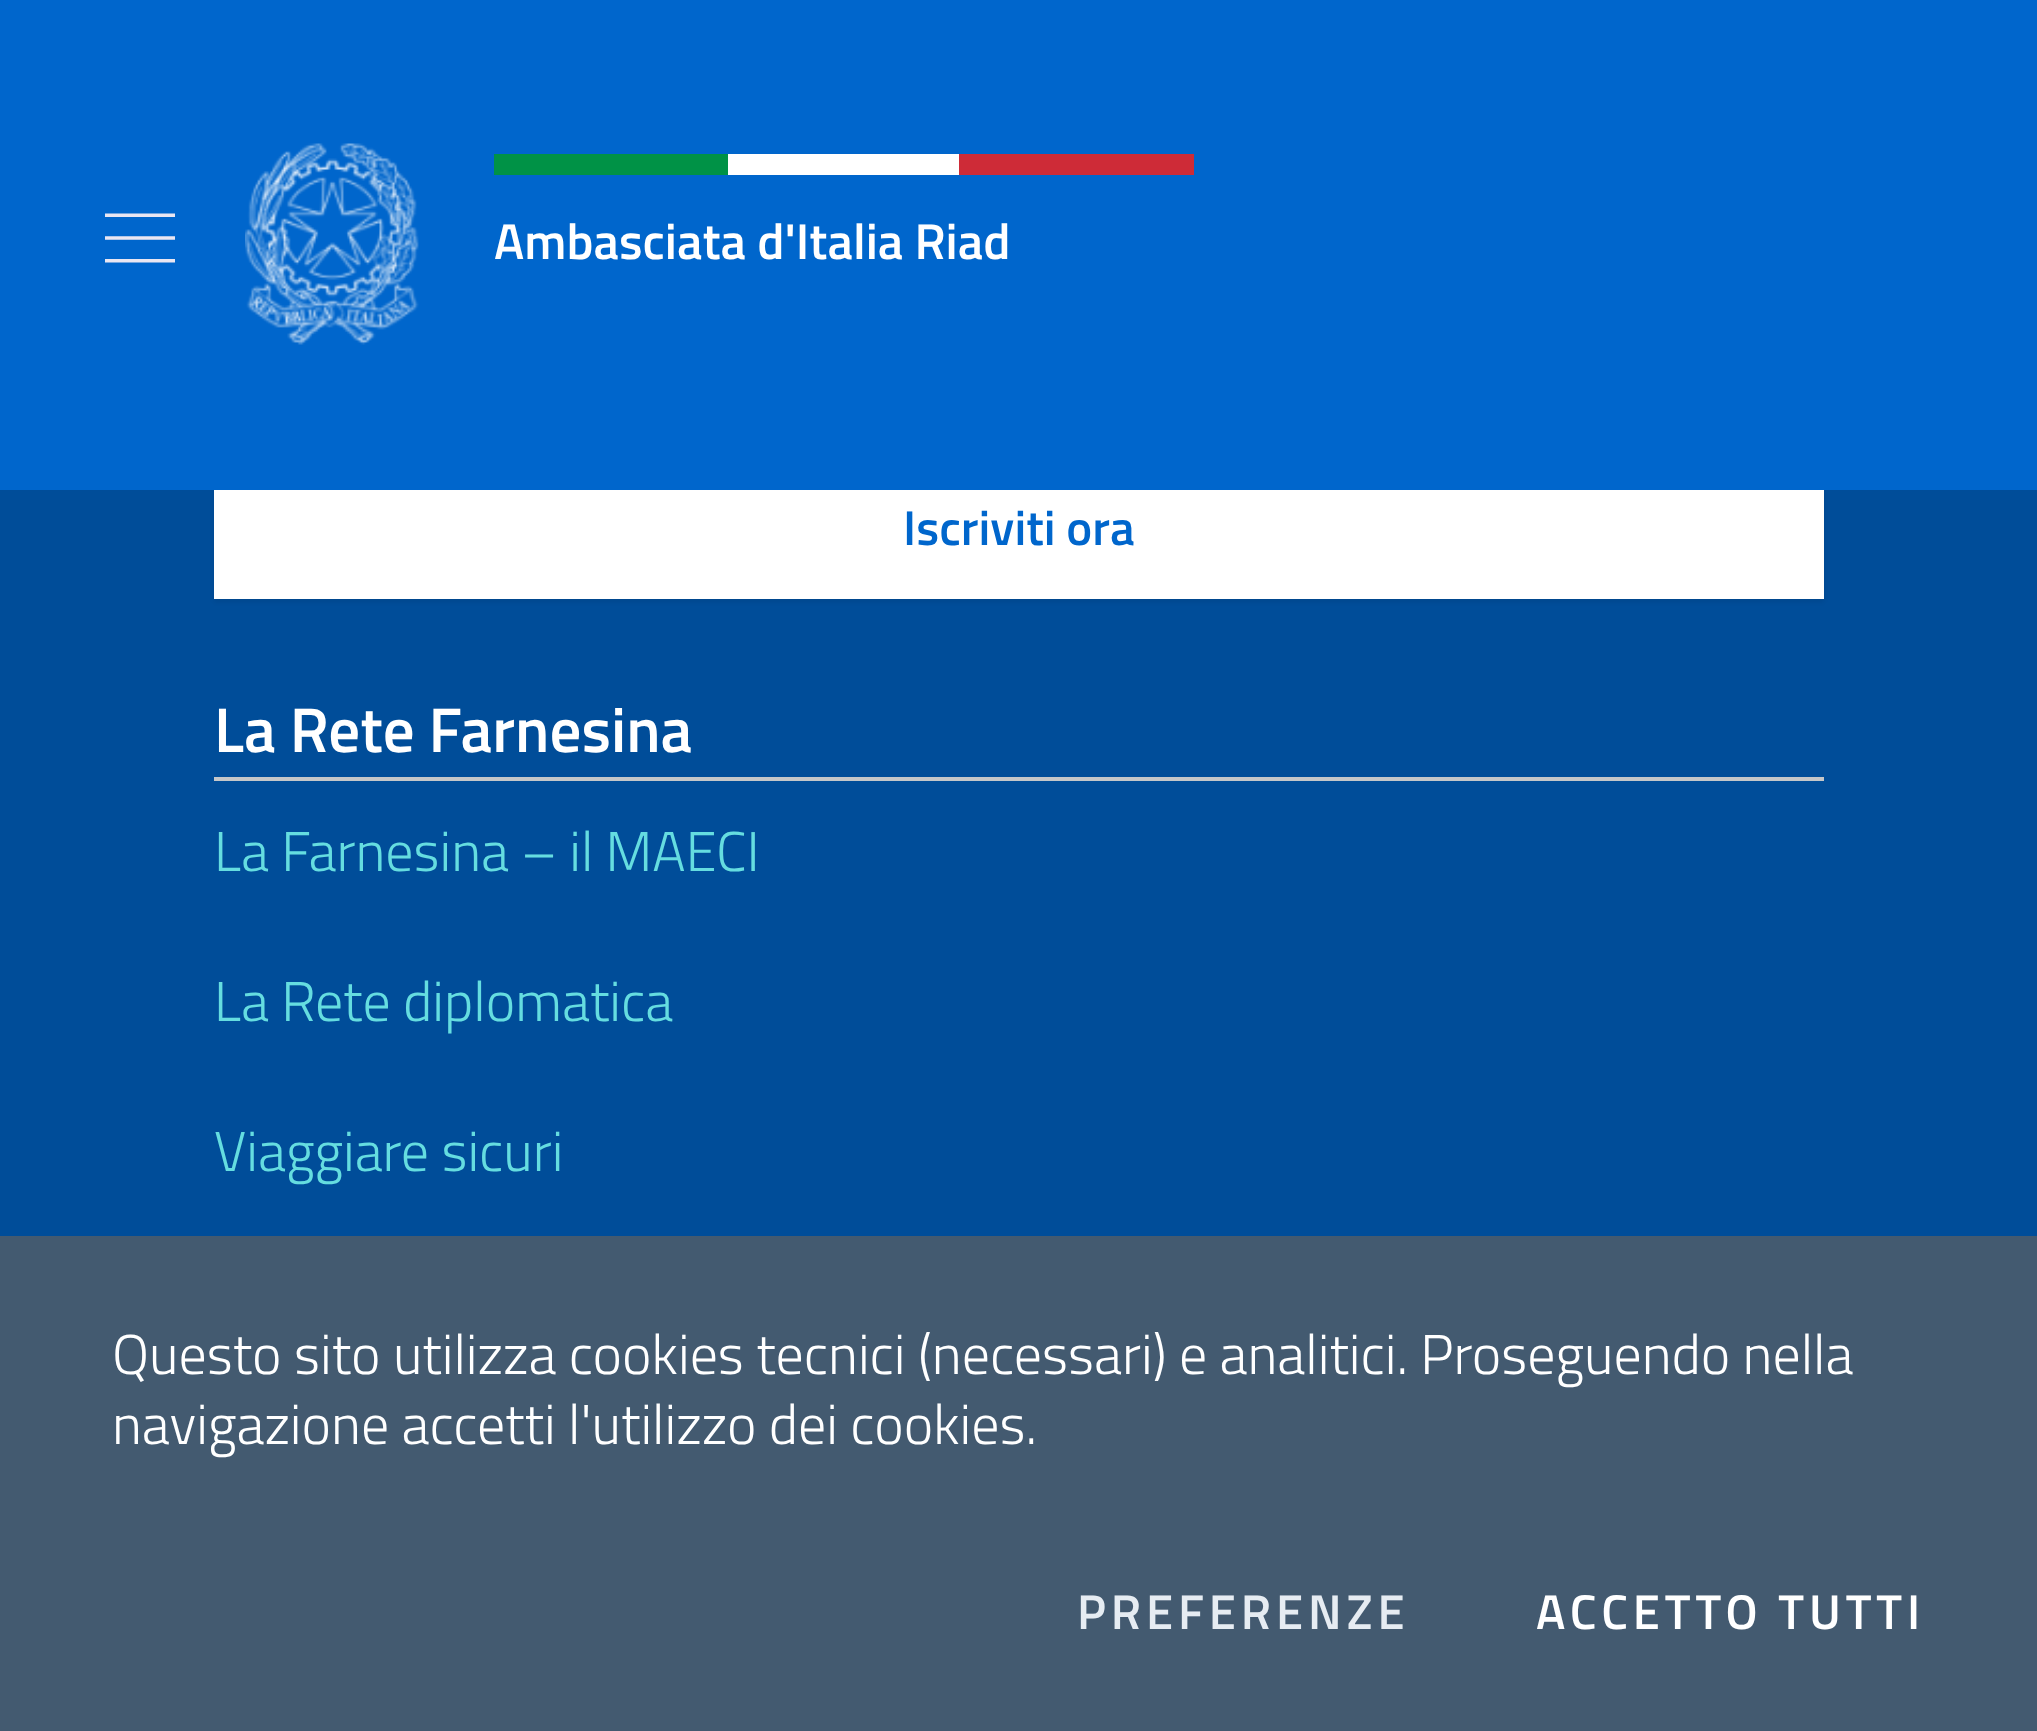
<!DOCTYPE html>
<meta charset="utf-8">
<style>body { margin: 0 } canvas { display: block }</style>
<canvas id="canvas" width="2037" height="1731"></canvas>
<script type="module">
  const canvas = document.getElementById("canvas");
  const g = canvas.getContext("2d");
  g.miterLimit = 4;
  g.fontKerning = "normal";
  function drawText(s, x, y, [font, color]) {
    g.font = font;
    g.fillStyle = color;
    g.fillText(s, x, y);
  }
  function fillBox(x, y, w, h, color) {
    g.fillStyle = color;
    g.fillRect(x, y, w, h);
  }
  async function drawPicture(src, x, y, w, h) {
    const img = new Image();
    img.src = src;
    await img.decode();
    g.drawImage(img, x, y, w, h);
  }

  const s1 = ["600 50.4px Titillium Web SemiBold", "#FFFFFF"];
  const s2 = ["600 49px Titillium Web SemiBold", "#0066CC"];
  const s3 = ["600 63px Titillium Web SemiBold", "#FFFFFF"];
  const s4 = ["300 56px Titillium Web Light", "#65DDE0"];
  const s5 = ["300 56px Titillium Web Light", "#FFFFFF"];
  const s6 = ["600 49px Titillium Web SemiBold", "#E6ECF2"];
  const s7 = ["600 49px Titillium Web SemiBold", "#FFFFFF"];

  fillBox(0, 0, 2037, 1731, "#004D99");
  g.fillStyle = "rgba(0, 0, 0, 0.07)";
  g.filter = "blur(2px)";
  g.beginPath();
  g.rect(214, 462, 1610, 140);
  g.fill();
  g.filter = "none";
  fillBox(0, 0, 2037, 490, "#0066CC");
  await drawPicture("pic1.png", 105, 213, 70, 50);
  await drawPicture("pic2.png", 245, 143, 174, 202);
  fillBox(494, 154, 234, 21, "#009246");
  fillBox(728, 154, 231, 21, "#FFFFFF");
  fillBox(959, 154, 235, 21, "#CE2B37");
  drawText("Ambasciata d'Italia Riad", 494, 259, s1);
  fillBox(214, 490, 1610, 109, "#FFFFFF");
  drawText("Iscriviti ora", 903, 545, s2);
  fillBox(214, 777, 1610, 4, "#C5C7C9");
  drawText("La Rete Farnesina", 214, 752, s3);
  drawText("La Farnesina – il MAECI", 214, 871, s4);
  drawText("La Rete diplomatica", 214, 1021, s4);
  drawText("Viaggiare sicuri", 214, 1171, s4);
  fillBox(0, 1236, 2037, 495, "#435A70");
  drawText("Questo sito utilizza cookies tecnici (necessari) e analitici. Proseguendo nella", 112, 1374, s5);
  drawText("navigazione accetti l'utilizzo dei cookies.", 112, 1444, s5);
  g.letterSpacing = "4.9px";
  drawText("PREFERENZE", 1077, 1629, s6);
  drawText("ACCETTO TUTTI", 1536, 1629, s7);
</script>
